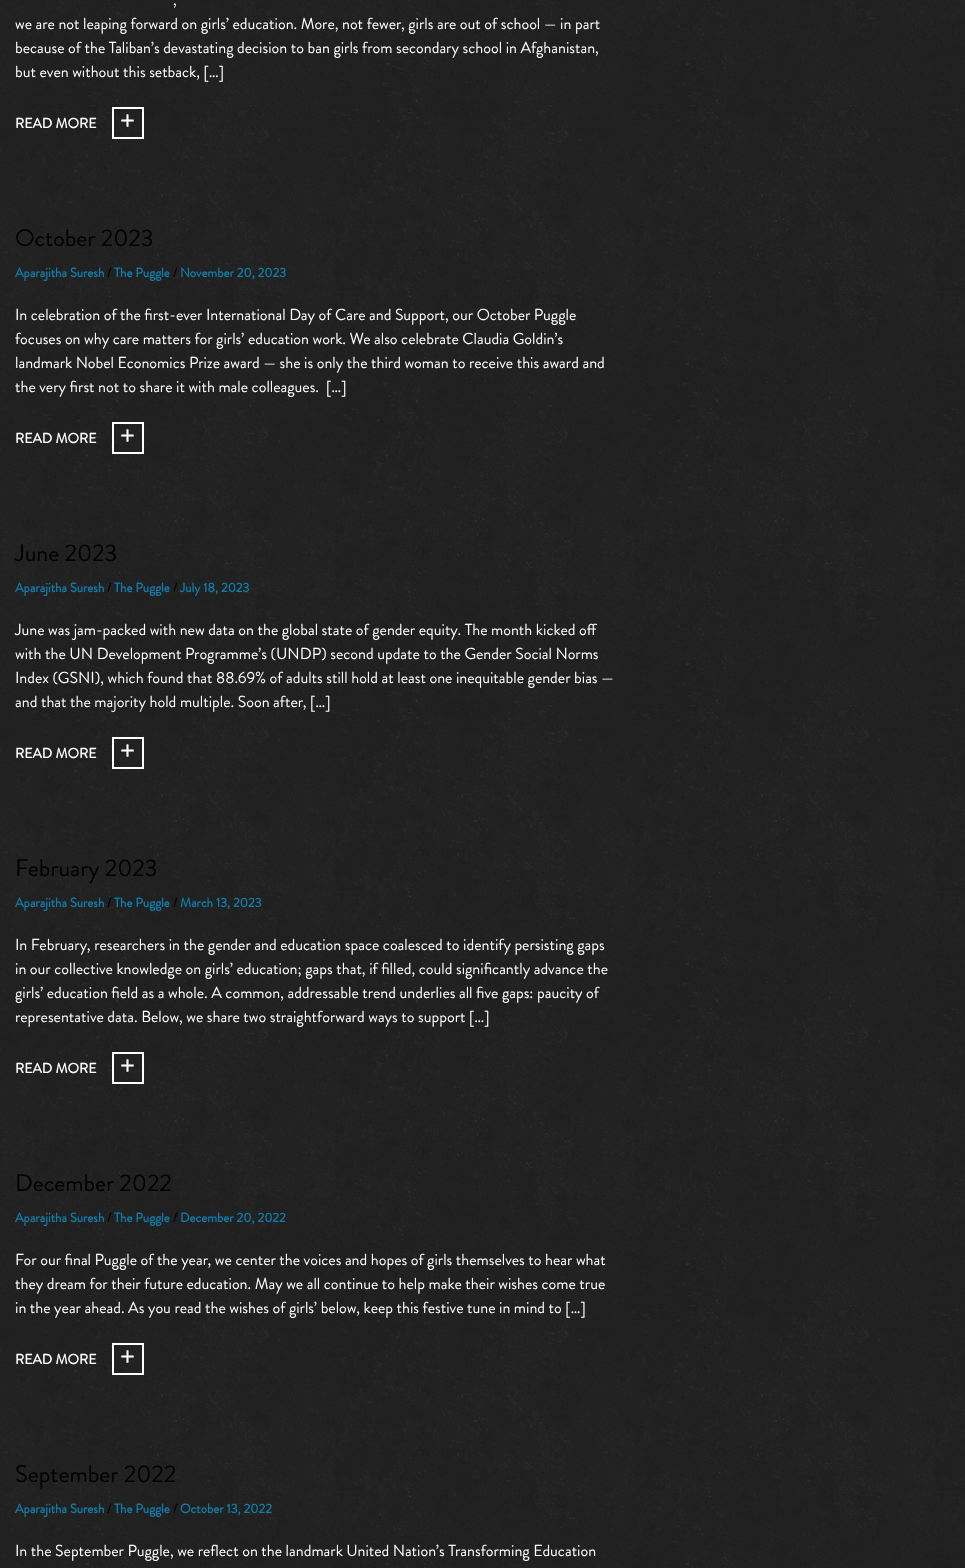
<!DOCTYPE html>
<meta charset="utf-8">
<style>body { margin: 0 } canvas { display: block }</style>
<canvas id="canvas" width="965" height="1568"></canvas>
<script type="module">
  const canvas = document.getElementById("canvas");
  const g = canvas.getContext("2d");
  g.miterLimit = 4;
  g.fontKerning = "normal";
  function drawText(s, x, y, [font, color]) {
    g.font = font;
    g.fillStyle = color;
    g.fillText(s, x, y);
  }
  function fillBox(x, y, w, h, color) {
    g.fillStyle = color;
    g.fillRect(x, y, w, h);
  }
  async function drawPicture(src, x, y, w, h) {
    const img = new Image();
    img.src = src;
    await img.decode();
    g.drawImage(img, x, y, w, h);
  }

  const s1 = ["16px Brandon Grotesque", "#FFFFFF"];
  const s2 = ["bold 14px Brandon Grotesque", "#FFFFFF"];
  const s3 = ["30px Brandon Grotesque", "#FFFFFF"];
  const s4 = ["24px Brandon Grotesque", "#000000"];
  const s5 = ["bold 13px Brandon Grotesque", "#107CA8"];
  const s6 = ["bold 13px Brandon Grotesque", "#000000"];

  fillBox(0, 0, 965, 1568, "#FFFFFF");
  await drawPicture("pic1.png", 0, 0, 965, 1568);
  drawText(",", 173, 5, s1);
  drawText("we are not leaping forward on girls’ education. More, not fewer, girls are out of school — in part", 15, 29, s1);
  drawText("because of the Taliban’s devastating decision to ban girls from secondary school in Afghanistan,", 15, 53, s1);
  drawText("but even without this setback, […]", 15, 77, s1);
  drawText("READ MORE", 15, 128, s2);
  g.strokeStyle = "#FFFFFF";
  g.lineWidth = 2;
  g.strokeRect(113, 108, 30, 30);
  drawText("+", 120, 131, s3);
  drawText("October 2023", 15, 246, s4);
  drawText("Aparajitha Suresh", 15, 277, s5);
  drawText("/", 107, 277, s6);
  drawText("The Puggle", 114, 277, s5);
  drawText("/", 173, 277, s6);
  drawText("November 20, 2023", 180, 277, s5);
  drawText("In celebration of the first-ever International Day of Care and Support, our October Puggle", 15, 320, s1);
  drawText("focuses on why care matters for girls’ education work. We also celebrate Claudia Goldin’s", 15, 344, s1);
  drawText("landmark Nobel Economics Prize award — she is only the third woman to receive this award and", 15, 368, s1);
  drawText("the very first not to share it with male colleagues.  […]", 15, 392, s1);
  drawText("READ MORE", 15, 443, s2);
  g.strokeRect(113, 423, 30, 30);
  drawText("+", 120, 446, s3);
  drawText("June 2023", 15, 561, s4);
  drawText("Aparajitha Suresh", 15, 592, s5);
  drawText("/", 107, 592, s6);
  drawText("The Puggle", 114, 592, s5);
  drawText("/", 173, 592, s6);
  drawText("July 18, 2023", 180, 592, s5);
  drawText("June was jam-packed with new data on the global state of gender equity. The month kicked off", 15, 635, s1);
  drawText("with the UN Development Programme’s (UNDP) second update to the Gender Social Norms", 15, 659, s1);
  drawText("Index (GSNI), which found that 88.69% of adults still hold at least one inequitable gender bias —", 15, 683, s1);
  drawText("and that the majority hold multiple. Soon after, […]", 15, 707, s1);
  drawText("READ MORE", 15, 758, s2);
  g.strokeRect(113, 738, 30, 30);
  drawText("+", 120, 761, s3);
  drawText("February 2023", 15, 876, s4);
  drawText("Aparajitha Suresh", 15, 907, s5);
  drawText("/", 107, 907, s6);
  drawText("The Puggle", 114, 907, s5);
  drawText("/", 173, 907, s6);
  drawText("March 13, 2023", 180, 907, s5);
  drawText("In February, researchers in the gender and education space coalesced to identify persisting gaps", 15, 950, s1);
  drawText("in our collective knowledge on girls’ education; gaps that, if filled, could significantly advance the", 15, 974, s1);
  drawText("girls’ education field as a whole. A common, addressable trend underlies all five gaps: paucity of", 15, 998, s1);
  drawText("representative data. Below, we share two straightforward ways to support […]", 15, 1022, s1);
  drawText("READ MORE", 15, 1073, s2);
  g.strokeRect(113, 1053, 30, 30);
  drawText("+", 120, 1076, s3);
  drawText("December 2022", 15, 1191, s4);
  drawText("Aparajitha Suresh", 15, 1222, s5);
  drawText("/", 107, 1222, s6);
  drawText("The Puggle", 114, 1222, s5);
  drawText("/", 173, 1222, s6);
  drawText("December 20, 2022", 180, 1222, s5);
  drawText("For our final Puggle of the year, we center the voices and hopes of girls themselves to hear what", 15, 1265, s1);
  drawText("they dream for their future education. May we all continue to help make their wishes come true", 15, 1289, s1);
  drawText("in the year ahead. As you read the wishes of girls’ below, keep this festive tune in mind to […]", 15, 1313, s1);
  drawText("READ MORE", 15, 1364, s2);
  g.strokeRect(113, 1344, 30, 30);
  drawText("+", 120, 1367, s3);
  drawText("September 2022", 15, 1482, s4);
  drawText("Aparajitha Suresh", 15, 1513, s5);
  drawText("/", 107, 1513, s6);
  drawText("The Puggle", 114, 1513, s5);
  drawText("/", 173, 1513, s6);
  drawText("October 13, 2022", 180, 1513, s5);
  drawText("In the September Puggle, we reflect on the landmark United Nation’s Transforming Education", 15, 1556, s1);
</script>
